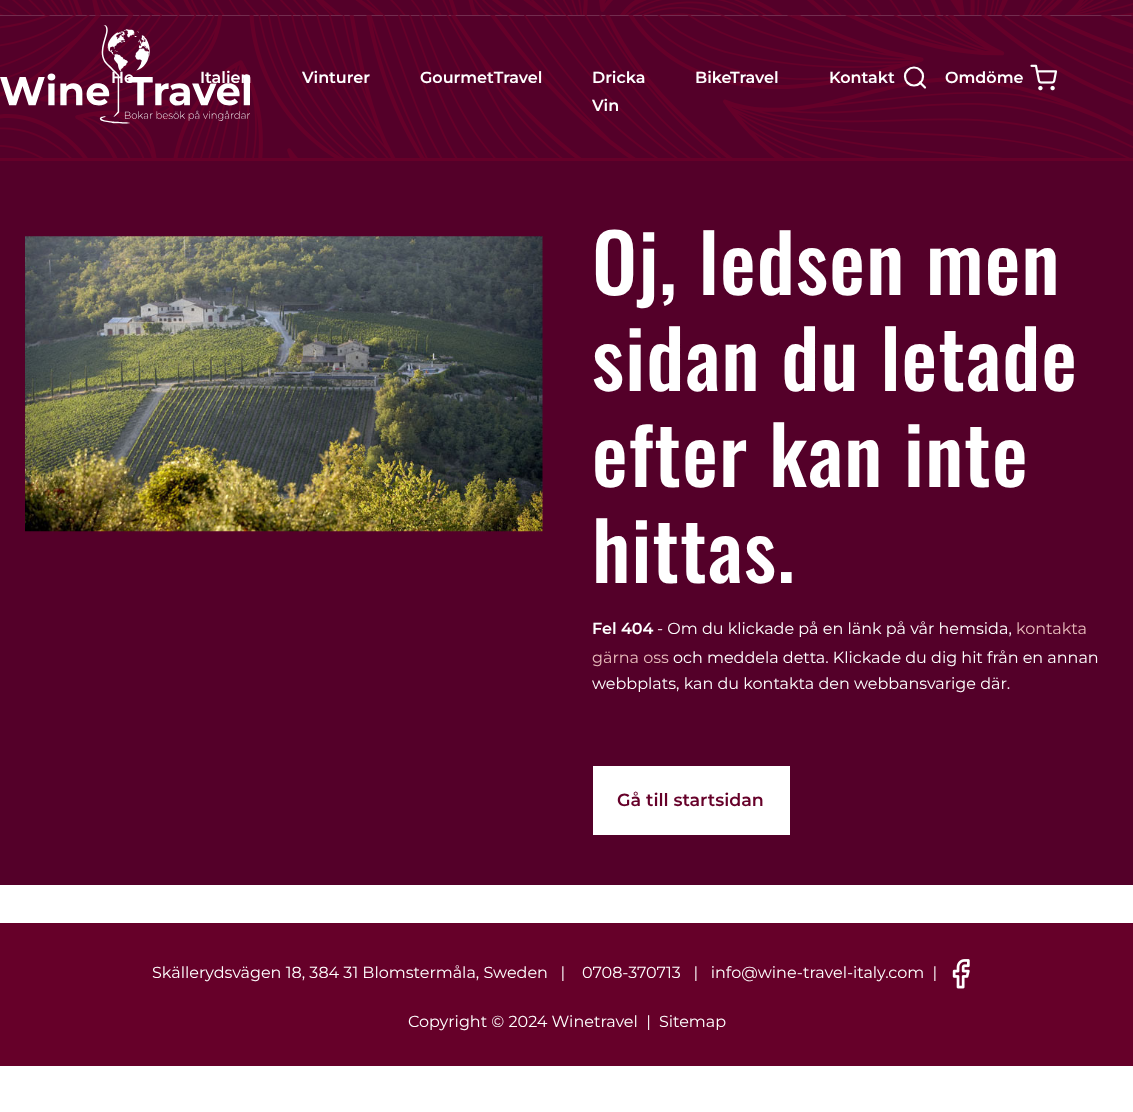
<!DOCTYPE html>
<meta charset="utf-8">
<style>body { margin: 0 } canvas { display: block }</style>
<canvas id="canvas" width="1133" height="1112"></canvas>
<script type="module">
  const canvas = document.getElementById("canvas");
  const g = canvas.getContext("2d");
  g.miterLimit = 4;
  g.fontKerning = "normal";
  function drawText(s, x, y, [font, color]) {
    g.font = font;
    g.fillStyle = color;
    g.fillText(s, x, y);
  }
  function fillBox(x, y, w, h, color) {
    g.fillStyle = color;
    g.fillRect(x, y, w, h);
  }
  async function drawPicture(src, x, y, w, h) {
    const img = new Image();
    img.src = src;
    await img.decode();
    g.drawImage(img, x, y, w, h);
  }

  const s1 = ["600 16px Montserrat", "#FFFFFF"];
  const s2 = ["500 80px Oswald", "#FFFFFF"];
  const s3 = ["16px Montserrat", "#FFFFFF"];
  const s4 = ["16px Montserrat", "#E8BBBB"];
  const s5 = ["600 17.5px Montserrat", "#660029"];

  fillBox(0, 0, 1133, 1112, "#FFFFFF");
  await drawPicture("pic1.png", 0, 0, 1133, 158);
  await drawPicture("pic2.png", 0, 25, 250, 99);
  g.beginPath();
  g.arc(914, 76.5, 9, 0, Math.PI * 2);
  g.strokeStyle = "#FFFFFF";
  g.lineWidth = 2.2;
  g.stroke();
  g.beginPath();
  g.moveTo(925, 87.5);
  g.lineTo(920, 82.5);
  g.lineCap = "round";
  g.lineJoin = "round";
  g.stroke();
  await drawPicture("pic3.png", 1030, 64, 28, 27);
  drawText("He", 111, 83, s1);
  drawText("Italien", 200, 83, s1);
  drawText("Vinturer", 302, 83, s1);
  drawText("GourmetTravel", 420, 83, s1);
  drawText("Dricka", 592, 83, s1);
  drawText("Vin", 592, 111, s1);
  drawText("BikeTravel", 695, 83, s1);
  drawText("Kontakt", 829, 83, s1);
  drawText("Omdöme", 945, 83, s1);
  fillBox(0, 158, 1133, 3, "#660029");
  fillBox(0, 161, 1133, 724, "#540029");
  await drawPicture("pic4.png", 25, 236, 518, 296);
  g.letterSpacing = "1.25px";
  drawText("Oj, ledsen men", 592, 295, s2);
  drawText("sidan du letade", 592, 391, s2);
  drawText("efter kan inte", 592, 487, s2);
  drawText("hittas.", 592, 583, s2);
  g.letterSpacing = "0px";
  drawText("Fel 404", 592, 634, s1);
  drawText("- Om du klickade på en länk på vår hemsida,", 657, 634, s3);
  drawText("kontakta", 1016, 634, s4);
  drawText("gärna oss", 592, 663, s4);
  drawText("och meddela detta. Klickade du dig hit från en annan", 673, 663, s3);
  drawText("webbplats, kan du kontakta den webbansvarige där.", 592, 689, s3);
  fillBox(593, 766, 197, 69, "#FFFFFF");
  drawText("Gå till startsidan", 617, 806, s5);
  fillBox(0, 923, 1133, 143, "#660029");
  drawText("Skällerydsvägen 18, 384 31 Blomstermåla, Sweden   |    0708-370713   |   info@wine-travel-italy.com  |", 152, 978, s3);
  await drawPicture("pic5.png", 952, 959, 18, 30);
  drawText("Copyright © 2024 Winetravel  |", 408, 1027, s3);
  drawText("Sitemap", 659, 1027, s3);
</script>
